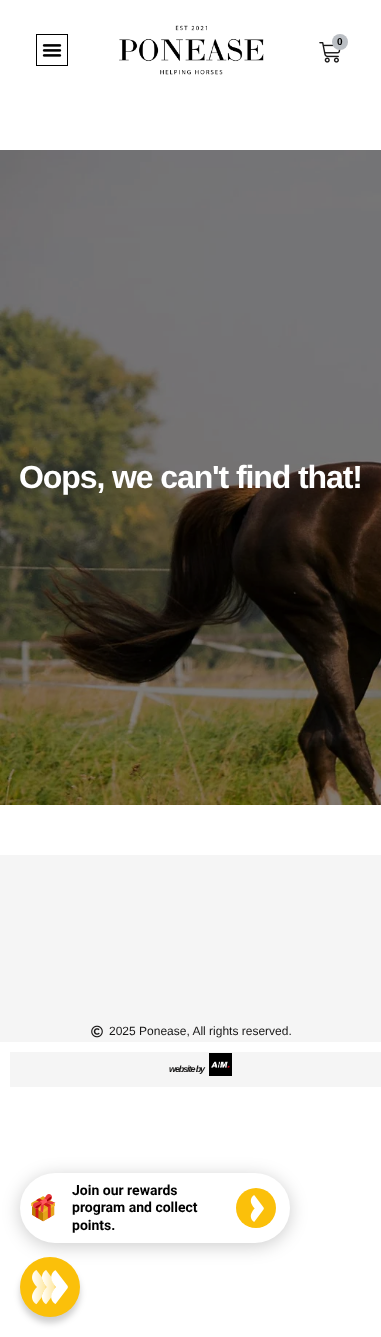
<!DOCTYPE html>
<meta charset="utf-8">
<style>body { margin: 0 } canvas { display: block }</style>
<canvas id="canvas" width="381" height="1337"></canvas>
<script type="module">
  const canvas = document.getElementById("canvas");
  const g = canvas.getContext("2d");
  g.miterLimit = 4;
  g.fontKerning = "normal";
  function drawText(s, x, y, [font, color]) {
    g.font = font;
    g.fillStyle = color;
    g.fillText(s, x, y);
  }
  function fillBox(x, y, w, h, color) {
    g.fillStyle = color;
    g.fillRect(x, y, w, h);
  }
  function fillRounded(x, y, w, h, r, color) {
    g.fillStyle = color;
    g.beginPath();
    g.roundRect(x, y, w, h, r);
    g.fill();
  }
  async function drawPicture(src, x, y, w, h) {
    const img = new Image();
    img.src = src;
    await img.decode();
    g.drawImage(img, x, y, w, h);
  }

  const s1 = ["bold 10px Liberation Sans", "#000000"];
  const s2 = ["bold 32px Liberation Sans", "#FFFFFF"];
  const s3 = ["12px Liberation Sans", "#171616"];
  const s4 = ["italic bold 9px Liberation Sans", "#171616"];
  const s5 = ["bold 14px Roboto", "#000000"];

  fillBox(0, 0, 381, 1337, "#FFFFFF");
  g.strokeStyle = "#000000";
  g.strokeRect(36.5, 34.5, 31, 31);
  await drawPicture("pic1.png", 42, 44, 20, 13);
  await drawPicture("pic2.png", 119, 25, 145, 50);
  await drawPicture("pic3.png", 319, 42, 22, 21);
  g.fillStyle = "#BBBFC4";
  g.beginPath();
  g.arc(340, 42, 8, 0, Math.PI * 2);
  g.fill();
  drawText("0", 337, 45, s1);
  await drawPicture("pic4.png", 0, 150, 381, 655);
  g.letterSpacing = "-1.1px";
  drawText("Oops, we can't find that!", 19, 488, s2);
  fillBox(0, 855, 381, 187, "#F5F5F5");
  await drawPicture("pic5.png", 91, 1025, 12, 13);
  g.letterSpacing = "0px";
  drawText("2025 Ponease, All rights reserved.", 109, 1035, s3);
  fillBox(10, 1052, 371, 35, "#F5F5F5");
  g.letterSpacing = "-1.1px";
  drawText("website by", 169, 1072, s4);
  await drawPicture("pic6.png", 209, 1053, 23, 23);
  g.fillStyle = "rgba(0, 0, 0, 0.2)";
  g.filter = "blur(9px)";
  g.beginPath();
  g.roundRect(20, 1176, 270, 70, 35);
  g.fill();
  g.filter = "none";
  fillRounded(20, 1173, 270, 70, 35, "#FFFFFF");
  await drawPicture("pic7.png", 31, 1194, 25, 28);
  g.letterSpacing = "0px";
  drawText("Join our rewards", 72, 1195, s5);
  drawText("program and collect", 72, 1212, s5);
  drawText("points.", 72, 1230, s5);
  g.fillStyle = "#FBC00A";
  g.beginPath();
  g.arc(256, 1208, 20, 0, Math.PI * 2);
  g.fill();
  await drawPicture("pic8.png", 250, 1195, 14, 27);
  g.fillStyle = "rgba(0, 0, 0, 0.19)";
  g.filter = "blur(3px)";
  g.beginPath();
  g.roundRect(20, 1263, 60, 60, 30);
  g.fill();
  g.filter = "none";
  g.fillStyle = "#FBC00A";
  g.beginPath();
  g.arc(50, 1287, 30, 0, Math.PI * 2);
  g.fill();
  await drawPicture("pic9.png", 32, 1270, 36, 35);
</script>
